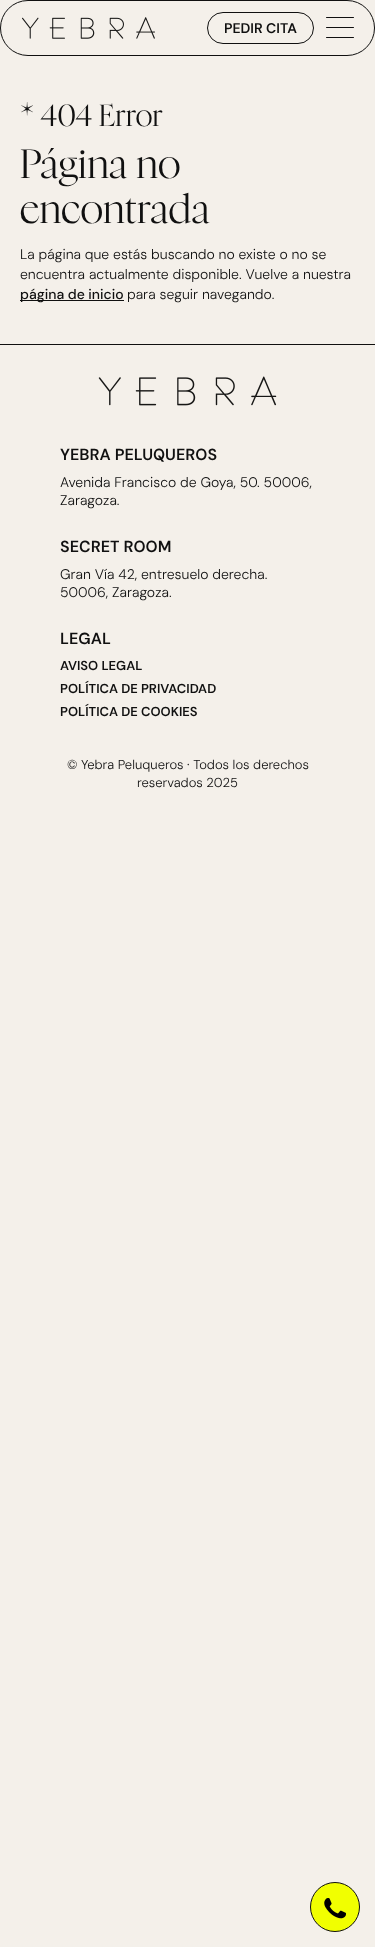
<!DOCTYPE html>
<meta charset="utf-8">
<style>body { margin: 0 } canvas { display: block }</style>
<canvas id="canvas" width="375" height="1947"></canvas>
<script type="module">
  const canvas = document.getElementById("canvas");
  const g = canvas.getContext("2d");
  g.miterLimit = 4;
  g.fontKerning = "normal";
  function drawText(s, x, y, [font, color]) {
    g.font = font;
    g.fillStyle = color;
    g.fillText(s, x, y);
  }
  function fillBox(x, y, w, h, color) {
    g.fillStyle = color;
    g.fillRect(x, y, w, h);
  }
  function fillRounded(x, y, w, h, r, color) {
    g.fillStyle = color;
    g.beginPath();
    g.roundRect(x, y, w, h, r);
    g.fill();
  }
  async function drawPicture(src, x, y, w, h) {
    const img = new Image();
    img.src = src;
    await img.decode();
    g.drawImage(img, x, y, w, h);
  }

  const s1 = ["600 14px 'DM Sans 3'", "#101010"];
  const s2 = ["300 30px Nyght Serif", "#101010"];
  const s3 = ["300 40px Nyght Serif", "#101010"];
  const s4 = ["300 14px DM Sans", "#101010"];
  const s5 = ["500 14px DM Sans", "#101010"];
  const s6 = ["600 16px DM Sans", "#101010"];
  const s7 = ["600 13px 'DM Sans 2'", "#101010"];
  const s8 = ["300 13px 'DM Sans 2'", "#101010"];

  fillBox(0, 0, 375, 1947, "#F4F0EA");
  g.beginPath();
  g.roundRect(0.5, 0.5, 374, 55, 27.5);
  g.strokeStyle = "#101010";
  g.stroke();
  await drawPicture("pic1.png", 22, 17, 133, 22);
  g.beginPath();
  g.roundRect(207.5, 12.5, 106, 31, 15.5);
  g.stroke();
  drawText("PEDIR CITA", 224, 33, s1);
  fillRounded(326, 17, 28, 1, 0.5, "#101010");
  fillRounded(326, 27, 28, 1, 0.5, "#101010");
  fillRounded(326, 37, 28, 1, 0.5, "#101010");
  drawText("* 404 Error", 20, 126, s2);
  drawText("Página no", 20, 178, s3);
  drawText("encontrada", 20, 223, s3);
  drawText("La página que estás buscando no existe o no se", 20, 259, s4);
  drawText("encuentra actualmente disponible. Vuelve a nuestra", 20, 279, s4);
  fillBox(20, 300, 104, 1, "#101010");
  drawText("página de inicio", 20, 299, s5);
  drawText("para seguir navegando.", 127, 299, s4);
  fillBox(0, 344, 375, 1, "#101010");
  await drawPicture("pic2.png", 98, 376, 179, 30);
  drawText("YEBRA PELUQUEROS", 60, 460, s6);
  drawText("Avenida Francisco de Goya, 50. 50006,", 60, 487, s4);
  drawText("Zaragoza.", 60, 505, s4);
  drawText("SECRET ROOM", 60, 552, s6);
  drawText("Gran Vía 42, entresuelo derecha.", 60, 579, s4);
  drawText("50006, Zaragoza.", 60, 597, s4);
  drawText("LEGAL", 60, 644, s6);
  drawText("AVISO LEGAL", 60, 670, s7);
  drawText("POLÍTICA DE PRIVACIDAD", 60, 693, s7);
  drawText("POLÍTICA DE COOKIES", 60, 716, s7);
  drawText("© Yebra Peluqueros · Todos los derechos", 67, 769, s8);
  drawText("reservados 2025", 137, 787, s8);
  g.fillStyle = "#F1FF00";
  g.beginPath();
  g.arc(335, 1907, 24.5, 0, Math.PI * 2);
  g.fill();
  g.stroke();
  await drawPicture("pic3.png", 324, 1898, 22, 21);
</script>
